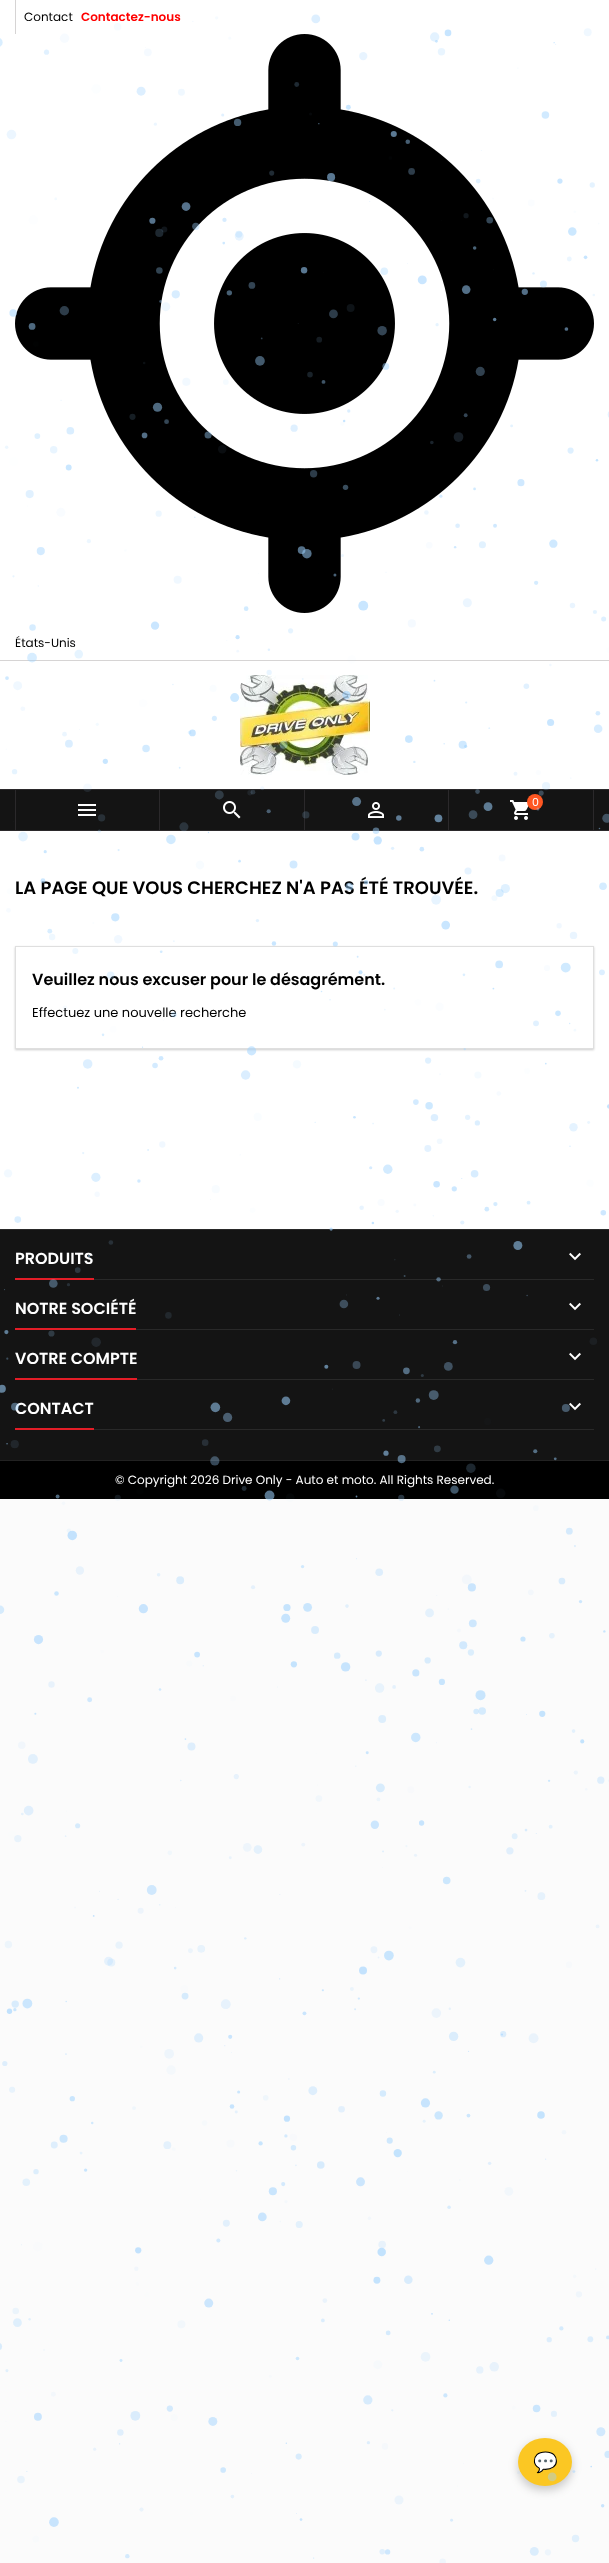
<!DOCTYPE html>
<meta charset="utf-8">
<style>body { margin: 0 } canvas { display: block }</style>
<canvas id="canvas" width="609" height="2563"></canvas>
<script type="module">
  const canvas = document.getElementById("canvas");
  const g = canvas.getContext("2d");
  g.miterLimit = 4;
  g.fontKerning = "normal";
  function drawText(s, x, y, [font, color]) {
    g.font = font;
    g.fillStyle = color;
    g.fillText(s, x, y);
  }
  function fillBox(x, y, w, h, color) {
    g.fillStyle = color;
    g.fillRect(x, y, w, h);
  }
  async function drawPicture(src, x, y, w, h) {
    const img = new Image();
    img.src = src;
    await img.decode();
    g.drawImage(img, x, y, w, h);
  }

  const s1 = ["12px Poppins", "#000000"];
  const s2 = ["600 12px Poppins", "#FF0000"];
  const s3 = ["11px Poppins", "#FFFFFF"];
  const s4 = ["600 18px Poppins", "#000000"];
  const s5 = ["600 16px Poppins", "#000000"];
  const s6 = ["13px Poppins", "#000000"];
  const s7 = ["600 16px Poppins", "#FFFFFF"];
  const s8 = ["12px Poppins", "#FFFFFF"];
  const s9 = ["20px Noto Color Emoji", "#FFFFFF"];

  fillBox(0, 0, 609, 2563, "#FBFBFB");
  fillBox(0, 0, 609, 1229, "#FFFFFF");
  fillBox(0, 660, 609, 1, "#D6D4D4");
  fillBox(15, 0, 1, 34, "#D6D4D4");
  drawText("Contact", 24, 21, s1);
  drawText("Contactez-nous", 81, 21, s2);
  await drawPicture("pic1.png", 15, 34, 579, 579);
  drawText("États-Unis", 15, 647, s1);
  await drawPicture("pic2.png", 240, 675, 130, 100);
  fillBox(0, 790, 609, 40, "#141414");
  fillBox(0, 789, 609, 1, "#2B292B");
  fillBox(0, 830, 609, 1, "#2B292B");
  fillBox(159, 790, 1, 40, "#2B292B");
  fillBox(15, 790, 1, 40, "#2B292B");
  await drawPicture("pic3.png", 78, 804, 18, 12);
  fillBox(304, 790, 1, 40, "#2B292B");
  await drawPicture("pic4.png", 223, 801, 18, 18);
  fillBox(448, 790, 1, 40, "#2B292B");
  await drawPicture("pic5.png", 368, 802, 16, 16);
  fillBox(593, 790, 1, 40, "#2B292B");
  await drawPicture("pic6.png", 510, 800, 19, 20);
  g.fillStyle = "#FF5722";
  g.beginPath();
  g.arc(535, 802, 8, 0, Math.PI * 2);
  g.fill();
  drawText("0", 532, 806, s3);
  drawText("LA PAGE QUE VOUS CHERCHEZ N'A PAS ÉTÉ TROUVÉE.", 15, 894, s4);
  g.save();
  g.beginPath();
  g.moveTo(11, 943);
  g.lineTo(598, 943);
  g.lineTo(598, 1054);
  g.lineTo(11, 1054);
  g.closePath();
  g.moveTo(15, 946);
  g.lineTo(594, 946);
  g.lineTo(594, 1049);
  g.lineTo(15, 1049);
  g.closePath();
  g.clip("evenodd");
  g.fillStyle = "rgba(0, 0, 0, 0.2)";
  g.filter = "blur(1px)";
  g.beginPath();
  g.rect(15, 947, 579, 103);
  g.fill();
  g.filter = "none";
  g.restore();
  g.strokeStyle = "#DFDFDF";
  g.strokeRect(15.5, 946.5, 578, 102);
  drawText("Veuillez nous excuser pour le désagrément.", 32, 985, s5);
  drawText("Effectuez une nouvelle recherche", 32, 1017, s6);
  fillBox(0, 1230, 609, 230, "#141414");
  fillBox(0, 1229, 609, 1, "#292929");
  fillBox(94, 1279, 500, 1, "#292929");
  fillBox(15, 1278, 79, 2, "#E31D27");
  drawText("PRODUITS", 15, 1264, s7);
  await drawPicture("pic7.png", 569, 1252, 12, 9);
  fillBox(136, 1329, 458, 1, "#292929");
  fillBox(15, 1328, 121, 2, "#E31D27");
  drawText("NOTRE SOCIÉTÉ", 15, 1314, s7);
  await drawPicture("pic7.png", 569, 1302, 12, 9);
  fillBox(137, 1379, 457, 1, "#292929");
  fillBox(15, 1378, 122, 2, "#E31D27");
  drawText("VOTRE COMPTE", 15, 1364, s7);
  await drawPicture("pic7.png", 569, 1352, 12, 9);
  fillBox(94, 1429, 500, 1, "#292929");
  fillBox(15, 1428, 79, 2, "#E31D27");
  drawText("CONTACT", 15, 1414, s7);
  await drawPicture("pic7.png", 569, 1402, 12, 9);
  fillBox(0, 1461, 609, 38, "#000000");
  fillBox(0, 1460, 609, 1, "#222222");
  drawText("© Copyright 2026 Drive Only - Auto et moto. All Rights Reserved.", 115, 1484, s8);
  g.fillStyle = "rgba(0, 0, 0, 0.2)";
  g.filter = "blur(5px)";
  g.beginPath();
  g.roundRect(518, 2442, 54, 48, 24);
  g.fill();
  g.filter = "none";
  g.fillStyle = "#FBC723";
  g.beginPath();
  g.ellipse(545, 2462, 27, 24, 0, 0, Math.PI * 2);
  g.fill();
  drawText("💬", 533, 2469, s9);
  await drawPicture("pic8.png", 0, 14, 609, 2549);
</script>
